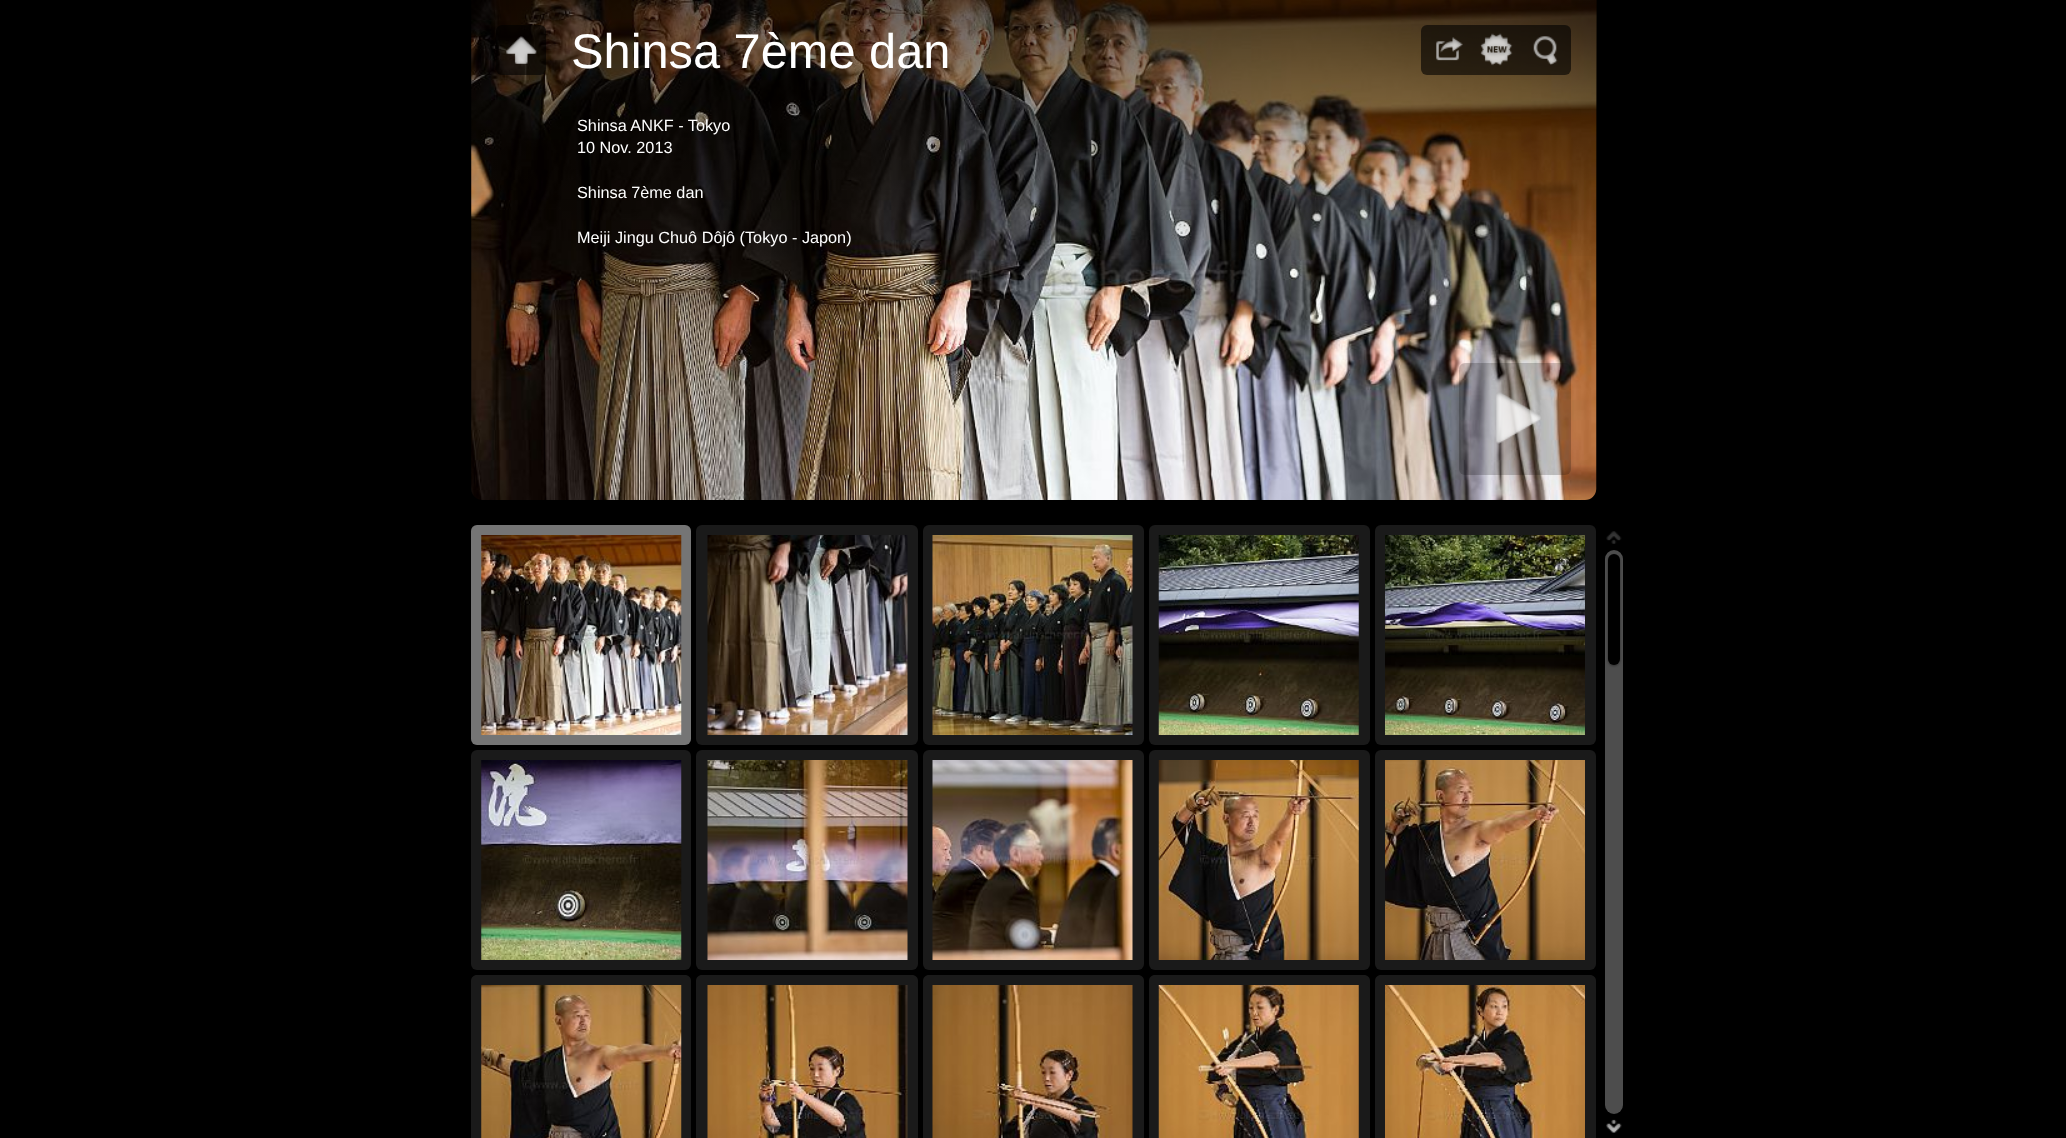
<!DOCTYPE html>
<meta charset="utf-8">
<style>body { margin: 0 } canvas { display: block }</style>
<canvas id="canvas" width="2066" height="1138"></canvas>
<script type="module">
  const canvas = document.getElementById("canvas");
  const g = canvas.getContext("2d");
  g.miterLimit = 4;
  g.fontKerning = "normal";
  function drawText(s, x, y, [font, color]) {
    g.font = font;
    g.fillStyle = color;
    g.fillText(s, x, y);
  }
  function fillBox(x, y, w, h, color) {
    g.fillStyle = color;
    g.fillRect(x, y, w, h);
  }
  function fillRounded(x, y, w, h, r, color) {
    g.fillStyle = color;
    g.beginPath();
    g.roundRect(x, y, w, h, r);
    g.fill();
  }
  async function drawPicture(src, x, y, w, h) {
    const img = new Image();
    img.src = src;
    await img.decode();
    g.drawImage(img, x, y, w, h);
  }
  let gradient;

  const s1 = ["48.75px Liberation Sans", "#FFFFFF"];
  const s2 = ["16.25px Liberation Sans", "#FFFFFF"];

  fillBox(0, 0, 2066, 1138, "#000000");
  await drawPicture("pic1.png", 471, 0, 1126, 500);
  gradient = g.createLinearGradient(1034, 0, 1034, 266);
  gradient.addColorStop(0, "rgba(0, 0, 0, 0.6)");
  gradient.addColorStop(1, "rgba(0, 0, 0, 0)");
  g.fillStyle = gradient;
  g.fillRect(471, 0, 1125, 256);
  fillRounded(496, 25, 50, 50, 6, "rgba(0, 0, 0, 0.6)");
  await drawPicture("pic2.png", 506, 36, 31, 28);
  drawText("Shinsa 7ème dan", 571, 68, s1);
  drawText("Shinsa ANKF - Tokyo", 577, 131, s2);
  drawText("10 Nov. 2013", 577, 153, s2);
  drawText("Shinsa 7ème dan", 577, 198, s2);
  drawText("Meiji Jingu Chuô Dôjô (Tokyo - Japon)", 577, 243, s2);
  g.fillStyle = "rgba(0, 0, 0, 0.6)";
  g.beginPath();
  g.roundRect(1421, 25, 50, 50, [6, 0, 0, 6]);
  g.fill();
  await drawPicture("pic3.png", 1436, 37, 27, 24);
  fillBox(1471, 25, 50, 50, "rgba(0, 0, 0, 0.6)");
  await drawPicture("pic4.png", 1480, 33, 33, 33);
  g.beginPath();
  g.roundRect(1521, 25, 50, 50, [0, 6, 6, 0]);
  g.fill();
  await drawPicture("pic5.png", 1533, 36, 25, 29);
  fillRounded(1459, 363, 112, 112, 6, "rgba(0, 0, 0, 0.2)");
  await drawPicture("pic6.png", 1496, 392, 45, 52);
  fillRounded(471, 525, 220, 220, 6, "#1A1A1A");
  fillRounded(471, 525, 220, 220, 6, "rgba(255, 255, 255, 0.4)");
  await drawPicture("pic7.png", 481, 535, 201, 200);
  fillRounded(696, 525, 222, 220, 6, "#1A1A1A");
  await drawPicture("pic8.png", 707, 535, 201, 200);
  fillRounded(923, 525, 221, 220, 6, "#1A1A1A");
  await drawPicture("pic9.png", 932, 535, 201, 200);
  fillRounded(1149, 525, 221, 220, 6, "#1A1A1A");
  await drawPicture("pic10.png", 1158, 535, 201, 200);
  fillRounded(1375, 525, 221, 220, 6, "#1A1A1A");
  await drawPicture("pic11.png", 1385, 535, 200, 200);
  fillRounded(471, 750, 220, 220, 6, "#1A1A1A");
  await drawPicture("pic12.png", 481, 760, 201, 200);
  fillRounded(696, 750, 222, 220, 6, "#1A1A1A");
  await drawPicture("pic13.png", 707, 760, 201, 200);
  fillRounded(923, 750, 221, 220, 6, "#1A1A1A");
  await drawPicture("pic14.png", 932, 760, 201, 200);
  fillRounded(1149, 750, 221, 220, 6, "#1A1A1A");
  await drawPicture("pic15.png", 1158, 760, 201, 200);
  fillRounded(1375, 750, 221, 220, 6, "#1A1A1A");
  await drawPicture("pic16.png", 1385, 760, 200, 200);
  g.beginPath();
  g.moveTo(477, 975);
  g.lineTo(685, 975);
  g.bezierCurveTo(688.5, 975, 691, 977.5, 691, 981);
  g.lineTo(691, 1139);
  g.lineTo(471, 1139);
  g.lineTo(471, 981);
  g.bezierCurveTo(471, 977.5, 473.5, 975, 477, 975);
  g.closePath();
  g.fill();
  await drawPicture("pic17.png", 481, 985, 201, 153);
  g.beginPath();
  g.moveTo(702, 975);
  g.lineTo(912, 975);
  g.bezierCurveTo(915.5, 975, 918, 977.5, 918, 981);
  g.lineTo(918, 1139);
  g.lineTo(696, 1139);
  g.lineTo(696, 981);
  g.bezierCurveTo(696, 977.5, 698.5, 975, 702, 975);
  g.closePath();
  g.fill();
  await drawPicture("pic18.png", 707, 985, 201, 153);
  g.beginPath();
  g.moveTo(929, 975);
  g.lineTo(1138, 975);
  g.bezierCurveTo(1141.5, 975, 1144, 977.5, 1144, 981);
  g.lineTo(1144, 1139);
  g.lineTo(923, 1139);
  g.lineTo(923, 981);
  g.bezierCurveTo(923, 977.5, 925.5, 975, 929, 975);
  g.closePath();
  g.fill();
  await drawPicture("pic19.png", 932, 985, 201, 153);
  g.beginPath();
  g.moveTo(1155, 975);
  g.lineTo(1364, 975);
  g.bezierCurveTo(1367.5, 975, 1370, 977.5, 1370, 981);
  g.lineTo(1370, 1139);
  g.lineTo(1149, 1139);
  g.lineTo(1149, 981);
  g.bezierCurveTo(1149, 977.5, 1151.5, 975, 1155, 975);
  g.closePath();
  g.fill();
  await drawPicture("pic20.png", 1158, 985, 201, 153);
  g.beginPath();
  g.moveTo(1381, 975);
  g.lineTo(1590, 975);
  g.bezierCurveTo(1593.5, 975, 1596, 977.5, 1596, 981);
  g.lineTo(1596, 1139);
  g.lineTo(1375, 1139);
  g.lineTo(1375, 981);
  g.bezierCurveTo(1375, 977.5, 1377.5, 975, 1381, 975);
  g.closePath();
  g.fill();
  await drawPicture("pic21.png", 1385, 985, 200, 153);
  await drawPicture("pic22.png", 1606, 531, 16, 13);
  fillRounded(1605, 550, 18, 564, 9, "#4D4D4D");
  g.fillStyle = "rgba(0, 0, 0, 0.4)";
  g.filter = "blur(1px)";
  g.beginPath();
  g.roundRect(1608, 555, 12, 111, 6);
  g.fill();
  g.filter = "none";
  fillRounded(1608, 554, 12, 111, 6, "#000000");
  await drawPicture("pic23.png", 1606, 1119, 16, 14);
</script>
